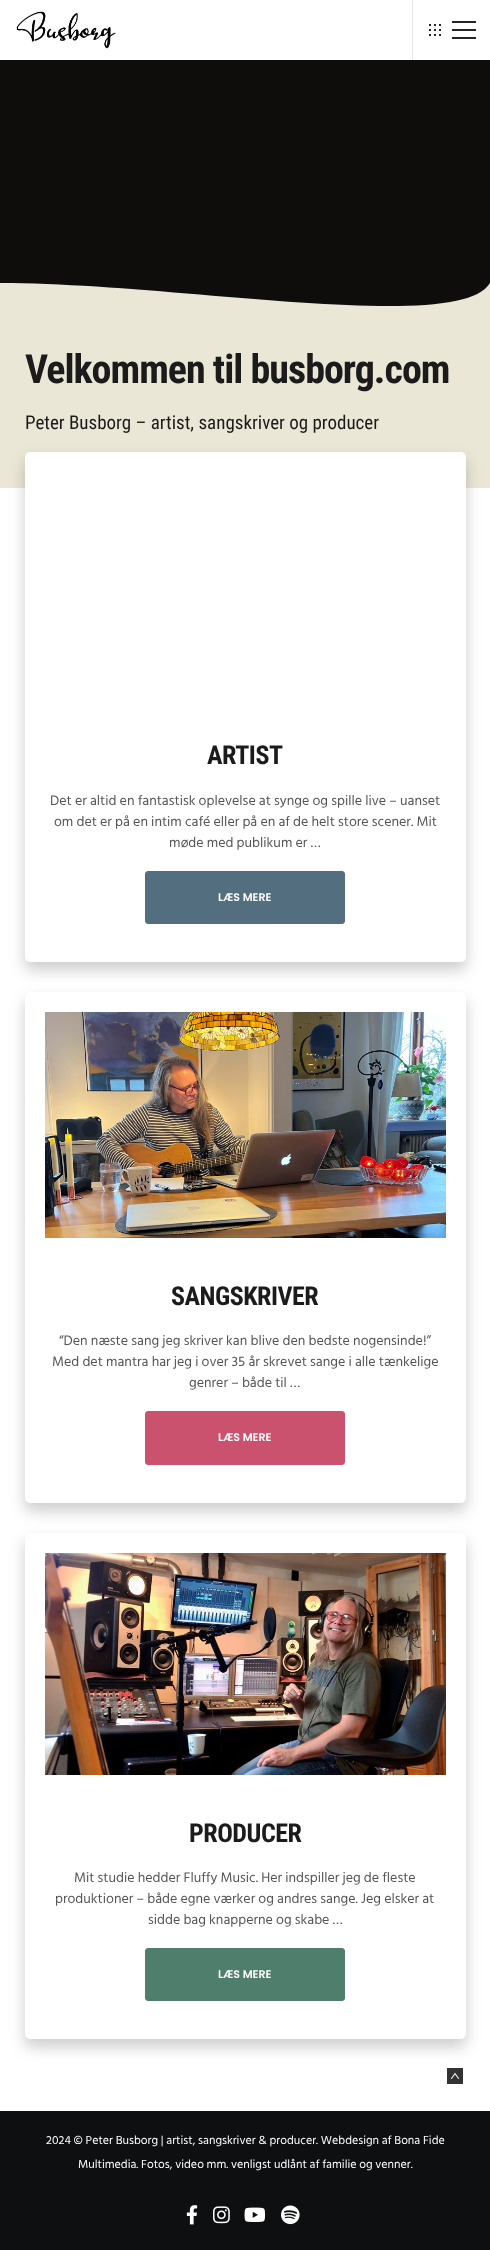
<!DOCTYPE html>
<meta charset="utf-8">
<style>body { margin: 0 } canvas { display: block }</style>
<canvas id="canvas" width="490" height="2250"></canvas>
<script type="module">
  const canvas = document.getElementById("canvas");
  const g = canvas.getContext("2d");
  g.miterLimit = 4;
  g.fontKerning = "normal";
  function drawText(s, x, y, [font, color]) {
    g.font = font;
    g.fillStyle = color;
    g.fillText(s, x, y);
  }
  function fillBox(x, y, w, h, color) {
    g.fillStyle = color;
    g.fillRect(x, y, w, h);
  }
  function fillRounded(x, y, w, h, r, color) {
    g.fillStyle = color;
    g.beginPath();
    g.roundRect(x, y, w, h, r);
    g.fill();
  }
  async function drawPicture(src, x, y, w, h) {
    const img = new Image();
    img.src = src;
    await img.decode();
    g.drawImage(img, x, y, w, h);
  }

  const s1 = ["bold 40px Roboto Condensed", "#1B1B1B"];
  const s2 = ["19px Roboto Condensed", "#1B1B1B"];
  const s3 = ["bold 26px Roboto Condensed", "#1B1B1B"];
  const s4 = ["14px Hind Siliguri", "#555555"];
  const s5 = ["600 11px Poppins", "#FFFFFF"];
  const s6 = ["12px Hind Siliguri", "#FFFFFF"];

  fillBox(0, 0, 490, 2250, "#0D0F10");
  fillBox(0, 0, 490, 60, "#FFFFFF");
  await drawPicture("pic1.png", 16, 11, 100, 38);
  fillBox(412, 0, 1, 60, "#E6E6E6");
  await drawPicture("pic2.png", 429, 24, 12, 12);
  await drawPicture("pic3.png", 452, 21, 24, 18);
  fillBox(0, 60, 490, 247, "#0F0D0B");
  g.fillStyle = "#EAE7D6";
  g.beginPath();
  g.moveTo(0, 283);
  g.bezierCurveTo(179, 283, 459, 335, 490, 283);
  g.lineTo(490, 313);
  g.lineTo(0, 313);
  g.closePath();
  g.fill();
  fillBox(0, 488, 490, 1623, "#FFFFFF");
  fillBox(0, 313, 490, 175, "#EAE7D6");
  g.letterSpacing = "-1px";
  drawText("Velkommen til busborg.com", 25, 383, s1);
  g.letterSpacing = "0px";
  drawText("Peter Busborg – artist, sangskriver og producer", 25, 429, s2);
  g.fillStyle = "rgba(0, 0, 0, 0.2)";
  g.filter = "blur(7.5px)";
  g.beginPath();
  g.roundRect(25, 460, 441, 510, 5);
  g.fill();
  g.filter = "none";
  fillRounded(25, 452, 441, 510, 5, "#FFFFFF");
  g.letterSpacing = "-0.5px";
  drawText("ARTIST", 207, 764, s3);
  g.letterSpacing = "0px";
  drawText("Det er altid en fantastisk oplevelse at synge og spille live – uanset", 50, 805, s4);
  drawText("om det er på en intim café eller på en af de helt store scener. Mit", 54, 826, s4);
  drawText("møde med publikum er …", 169, 847, s4);
  g.fillStyle = "#536E7E";
  g.beginPath();
  g.roundRect(145.5, 871.5, 199, 52, 2.5);
  g.fill();
  g.strokeStyle = "#536E7E";
  g.stroke();
  drawText("LÆS MERE", 218, 901, s5);
  g.fillStyle = "rgba(0, 0, 0, 0.2)";
  g.filter = "blur(7.5px)";
  g.beginPath();
  g.roundRect(25, 1000, 441, 511, 5);
  g.fill();
  g.filter = "none";
  fillRounded(25, 992, 441, 511, 5, "#FFFFFF");
  await drawPicture("pic4.png", 45, 1012, 401, 226);
  g.letterSpacing = "-0.5px";
  drawText("SANGSKRIVER", 171, 1305, s3);
  g.letterSpacing = "0px";
  drawText("“Den næste sang jeg skriver kan blive den bedste nogensinde!”", 59, 1345, s4);
  drawText("Med det mantra har jeg i over 35 år skrevet sange i alle tænkelige", 52, 1366, s4);
  drawText("genrer – både til …", 189, 1387, s4);
  g.fillStyle = "#CA526E";
  g.beginPath();
  g.roundRect(145.5, 1411.5, 199, 53, 2.5);
  g.fill();
  g.strokeStyle = "#CA526E";
  g.stroke();
  drawText("LÆS MERE", 218, 1441, s5);
  g.fillStyle = "rgba(0, 0, 0, 0.2)";
  g.filter = "blur(7.5px)";
  g.beginPath();
  g.roundRect(25, 1541, 441, 506, 5);
  g.fill();
  g.filter = "none";
  fillRounded(25, 1533, 441, 506, 5, "#FFFFFF");
  await drawPicture("pic5.png", 45, 1553, 401, 222);
  g.letterSpacing = "-0.5px";
  drawText("PRODUCER", 189, 1842, s3);
  g.letterSpacing = "0px";
  drawText("Mit studie hedder Fluffy Music. Her indspiller jeg de fleste", 74, 1882, s4);
  drawText("produktioner – både egne værker og andres sange. Jeg elsker at", 55, 1903, s4);
  drawText("sidde bag knapperne og skabe …", 148, 1924, s4);
  g.fillStyle = "#507E6D";
  g.beginPath();
  g.roundRect(145.5, 1948.5, 199, 52, 2.5);
  g.fill();
  g.strokeStyle = "#507E6D";
  g.stroke();
  drawText("LÆS MERE", 218, 1978, s5);
  fillBox(447, 2068, 16, 16, "#333333");
  await drawPicture("pic6.png", 450, 2072, 10, 7);
  drawText("2024 © Peter Busborg | artist, sangskriver & producer. Webdesign af Bona Fide", 46, 2144, s6);
  drawText("Multimedia. Fotos, video mm. venligst udlånt af familie og venner.", 78, 2168, s6);
  await drawPicture("pic7.png", 186, 2205, 12, 20);
  await drawPicture("pic8.png", 213, 2206, 17, 18);
  await drawPicture("pic9.png", 244, 2207, 22, 15);
  await drawPicture("pic10.png", 281, 2205, 19, 20);
</script>
